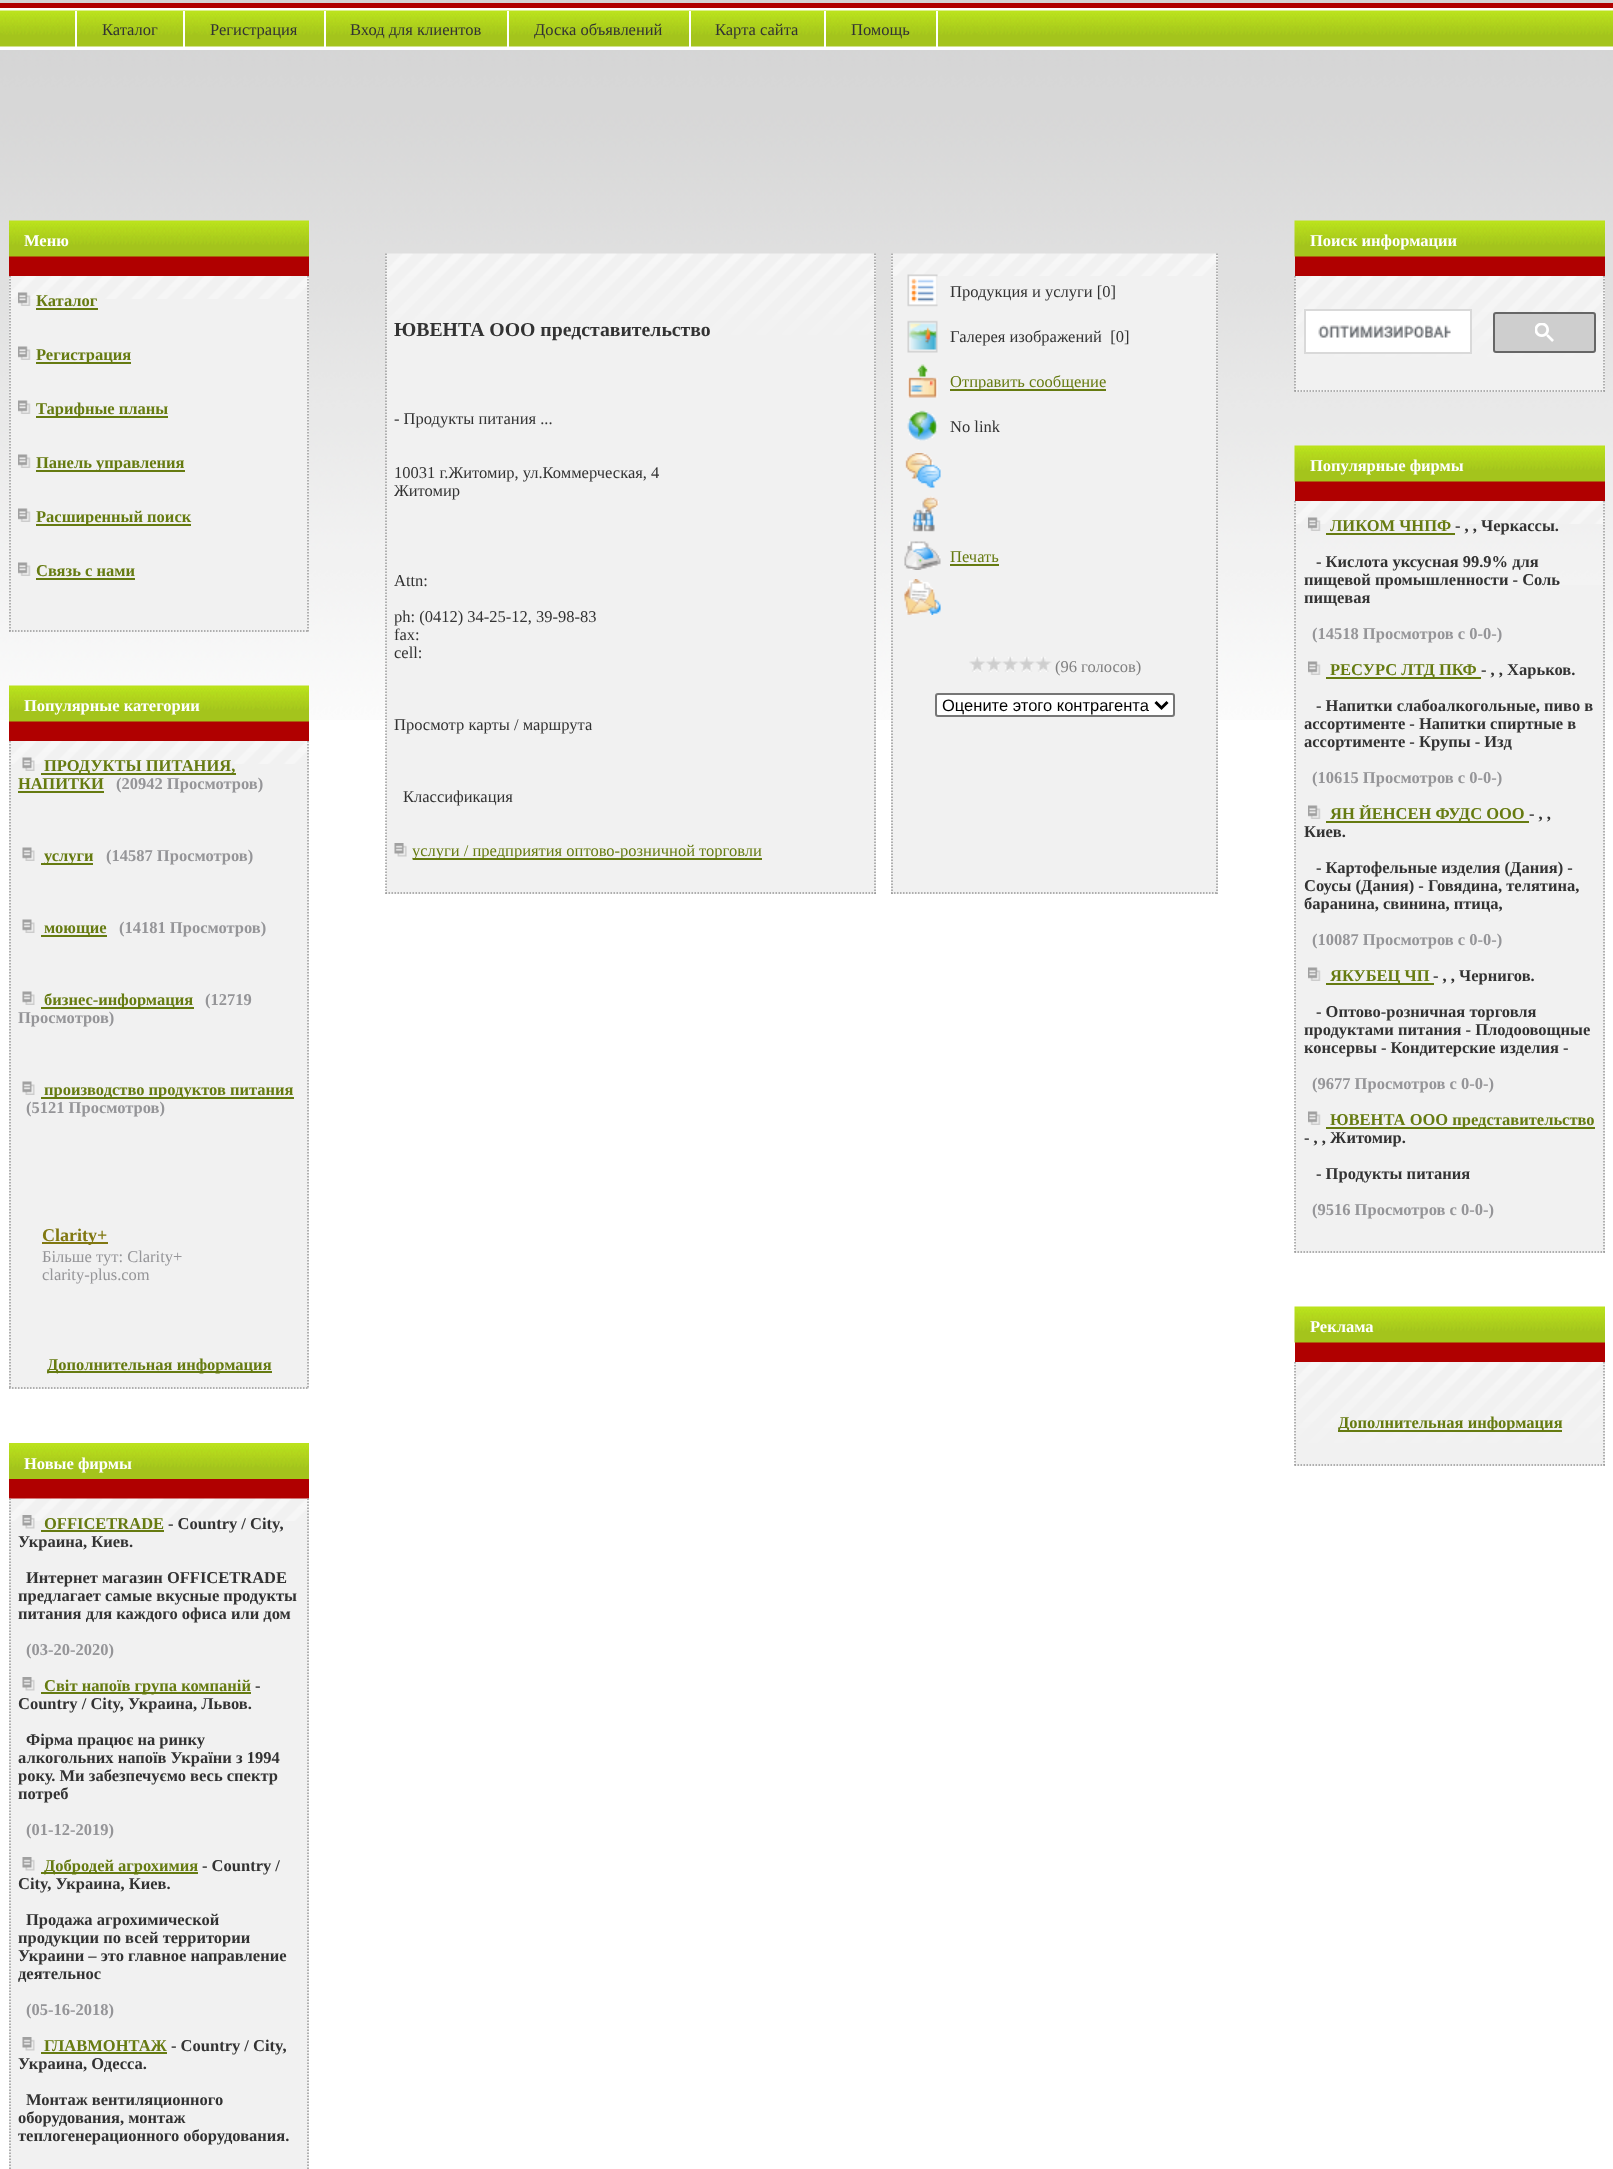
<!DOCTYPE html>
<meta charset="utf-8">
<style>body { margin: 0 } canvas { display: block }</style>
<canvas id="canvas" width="1613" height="2169"></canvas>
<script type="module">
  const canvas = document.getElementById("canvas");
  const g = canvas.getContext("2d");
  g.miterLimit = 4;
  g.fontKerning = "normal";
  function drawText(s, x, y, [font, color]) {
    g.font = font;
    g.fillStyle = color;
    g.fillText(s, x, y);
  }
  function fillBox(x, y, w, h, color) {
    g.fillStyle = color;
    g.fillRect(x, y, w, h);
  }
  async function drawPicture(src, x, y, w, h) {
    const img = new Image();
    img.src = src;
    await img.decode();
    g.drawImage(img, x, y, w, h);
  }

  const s1 = ["16.5px Liberation Serif", "#333333"];
  const s2 = ["bold 16.5px Liberation Serif", "#FFFFFF"];
  const s3 = ["bold 16.5px Liberation Serif", "#667B11"];
  const s4 = ["bold 16.5px Liberation Serif", "#959598"];
  const s5 = ["bold 18px Liberation Serif", "#817811"];
  const s6 = ["16.5px Liberation Serif", "#959598"];
  const s7 = ["bold 16.5px Liberation Serif", "#333333"];
  const s8 = ["bold 19.75px Liberation Serif", "#333333"];
  const s9 = ["16.5px Liberation Serif", "#667B11"];
  const s10 = ["16.5px Liberation Serif", "#808080"];
  const s11 = ["16.5px Liberation Sans", "#000000"];

  fillBox(0, 0, 1613, 2169, "#FFFFFF");
  await drawPicture("pic1.png", 0, 0, 1613, 720);
  fillBox(0, 8, 1613, 42, "#FFFFFF");
  await drawPicture("pic2.png", 0, 10, 1613, 37);
  fillBox(0, 3, 1613, 5, "#B00000");
  fillBox(75, 11, 2, 36, "#FFFFFF");
  fillBox(183, 11, 2, 36, "#FFFFFF");
  drawText("Каталог", 102, 35, s1);
  fillBox(324, 11, 2, 36, "#FFFFFF");
  drawText("Регистрация", 210, 35, s1);
  fillBox(507, 11, 2, 36, "#FFFFFF");
  drawText("Вход для клиентов", 350, 35, s1);
  fillBox(689, 11, 2, 36, "#FFFFFF");
  drawText("Доска объявлений", 534, 35, s1);
  fillBox(824, 11, 2, 36, "#FFFFFF");
  drawText("Карта сайта", 715, 35, s1);
  fillBox(936, 11, 2, 36, "#FFFFFF");
  drawText("Помощь", 851, 35, s1);
  fillBox(9, 256, 300, 20, "#B00000");
  await drawPicture("pic3.png", 9, 220, 300, 37);
  drawText("Меню", 24, 246, s2);
  fillBox(9, 299, 300, 333, "#F1F1F1");
  await drawPicture("pic4.png", 9, 276, 300, 23);
  g.beginPath();
  g.moveTo(308, 276);
  g.lineTo(308, 631.5);
  g.strokeStyle = "#999999";
  g.lineWidth = 1.5;
  g.setLineDash([1.5, 1.5]);
  g.stroke();
  g.beginPath();
  g.moveTo(9, 631);
  g.lineTo(309, 631);
  g.stroke();
  g.beginPath();
  g.moveTo(10, 276);
  g.lineTo(10, 631.5);
  g.stroke();
  await drawPicture("pic5.png", 18, 292, 13, 14);
  drawText("Каталог", 36, 306, s3);
  fillBox(36, 308, 62, 2, "#667B11");
  await drawPicture("pic6.png", 18, 346, 13, 14);
  fillBox(36, 362, 95, 2, "#667B11");
  drawText("Регистрация", 36, 360, s3);
  await drawPicture("pic6.png", 18, 400, 13, 14);
  fillBox(36, 416, 132, 2, "#667B11");
  drawText("Тарифные планы", 36, 414, s3);
  await drawPicture("pic6.png", 18, 454, 13, 14);
  fillBox(36, 470, 149, 2, "#667B11");
  drawText("Панель управления", 36, 468, s3);
  await drawPicture("pic6.png", 18, 508, 13, 14);
  fillBox(36, 524, 155, 2, "#667B11");
  drawText("Расширенный поиск", 36, 522, s3);
  await drawPicture("pic6.png", 18, 562, 13, 14);
  drawText("Связь с нами", 36, 576, s3);
  fillBox(36, 578, 99, 2, "#667B11");
  fillBox(9, 721, 300, 20, "#B00000");
  await drawPicture("pic7.png", 9, 685, 300, 37);
  drawText("Популярные категории", 24, 711, s2);
  fillBox(9, 764, 300, 625, "#F1F1F1");
  await drawPicture("pic8.png", 9, 741, 300, 23);
  g.beginPath();
  g.moveTo(308, 741);
  g.lineTo(308, 1389);
  g.stroke();
  g.beginPath();
  g.moveTo(9, 1388);
  g.lineTo(309, 1388);
  g.stroke();
  g.beginPath();
  g.moveTo(10, 741);
  g.lineTo(10, 1389);
  g.stroke();
  await drawPicture("pic9.png", 22, 757, 13, 14);
  fillBox(41, 773, 195, 2, "#667B11");
  drawText("ПРОДУКТЫ ПИТАНИЯ,", 44, 771, s3);
  drawText("НАПИТКИ", 18, 789, s3);
  fillBox(18, 791, 86, 2, "#667B11");
  drawText("(20942 Просмотров)", 116, 789, s4);
  await drawPicture("pic10.png", 22, 847, 13, 14);
  fillBox(41, 863, 52, 2, "#667B11");
  drawText("услуги", 44, 861, s3);
  drawText("(14587 Просмотров)", 106, 861, s4);
  await drawPicture("pic10.png", 22, 919, 13, 14);
  fillBox(41, 935, 66, 2, "#667B11");
  drawText("моющие", 44, 933, s3);
  drawText("(14181 Просмотров)", 119, 933, s4);
  await drawPicture("pic10.png", 22, 991, 13, 14);
  fillBox(41, 1007, 153, 2, "#667B11");
  drawText("бизнес-информация", 44, 1005, s3);
  drawText("(12719", 205, 1005, s4);
  drawText("Просмотров)", 18, 1023, s4);
  await drawPicture("pic10.png", 22, 1081, 13, 14);
  fillBox(41, 1097, 253, 2, "#667B11");
  drawText("производство продуктов питания", 44, 1095, s3);
  drawText("(5121 Просмотров)", 26, 1113, s4);
  fillBox(42, 1242, 66, 2, "#817811");
  drawText("Clarity+", 42, 1241, s5);
  drawText("Більше тут: Clarity+", 42, 1262, s6);
  drawText("clarity-plus.com", 42, 1280, s6);
  fillBox(47, 1371, 225, 2, "#667B11");
  drawText("Дополнительная информация", 47, 1370, s3);
  fillBox(9, 1479, 300, 20, "#B00000");
  await drawPicture("pic11.png", 9, 1443, 300, 36);
  drawText("Новые фирмы", 24, 1469, s2);
  fillBox(9, 1521, 300, 648, "#F1F1F1");
  await drawPicture("pic12.png", 9, 1498, 300, 23);
  g.beginPath();
  g.moveTo(308, 1498.5);
  g.lineTo(308, 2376);
  g.stroke();
  g.beginPath();
  g.moveTo(10, 1498.5);
  g.lineTo(10, 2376);
  g.stroke();
  await drawPicture("pic13.png", 22, 1515, 13, 14);
  drawText("OFFICETRADE", 44, 1529, s3);
  fillBox(41, 1530, 123, 2, "#667B11");
  drawText("- Country / City,", 168, 1529, s7);
  drawText("Украина, Киев.", 18, 1547, s7);
  drawText("Интернет магазин OFFICETRADE", 26, 1583, s7);
  drawText("предлагает самые вкусные продукты", 18, 1601, s7);
  drawText("питания для каждого офиса или дом", 18, 1619, s7);
  drawText("(03-20-2020)", 26, 1655, s4);
  await drawPicture("pic14.png", 22, 1677, 13, 14);
  fillBox(41, 1692, 210, 2, "#667B11");
  drawText("Світ напоїв група компаній", 44, 1691, s3);
  drawText("-", 255, 1691, s7);
  drawText("Country / City, Украина, Львов.", 18, 1709, s7);
  drawText("Фірма працює на ринку", 26, 1745, s7);
  drawText("алкогольних напоїв України з 1994", 18, 1763, s7);
  drawText("року. Ми забезпечуємо весь спектр", 18, 1781, s7);
  drawText("потреб", 18, 1799, s7);
  drawText("(01-12-2019)", 26, 1835, s4);
  await drawPicture("pic14.png", 22, 1857, 13, 14);
  fillBox(41, 1872, 157, 2, "#667B11");
  drawText("Добродей агрохимия", 44, 1871, s3);
  drawText("- Country /", 202, 1871, s7);
  drawText("City, Украина, Киев.", 18, 1889, s7);
  drawText("Продажа агрохимической", 26, 1925, s7);
  drawText("продукции по всей территории", 18, 1943, s7);
  drawText("Украини – это главное направление", 18, 1961, s7);
  drawText("деятельнос", 18, 1979, s7);
  drawText("(05-16-2018)", 26, 2015, s4);
  await drawPicture("pic14.png", 22, 2037, 13, 14);
  drawText("ГЛАВМОНТАЖ", 44, 2051, s3);
  fillBox(41, 2052, 126, 2, "#667B11");
  drawText("- Country / City,", 171, 2051, s7);
  drawText("Украина, Одесса.", 18, 2069, s7);
  drawText("Монтаж вентиляционного", 26, 2105, s7);
  drawText("оборудования, монтаж", 18, 2123, s7);
  drawText("теплогенерационного оборудования.", 18, 2141, s7);
  fillBox(386, 343, 490, 551, "#F1F1F1");
  await drawPicture("pic15.png", 385, 253, 491, 90);
  g.beginPath();
  g.moveTo(875, 253.5);
  g.lineTo(875, 894);
  g.stroke();
  g.beginPath();
  g.moveTo(385.5, 893);
  g.lineTo(876, 893);
  g.stroke();
  g.beginPath();
  g.moveTo(386, 253.5);
  g.lineTo(386, 894);
  g.stroke();
  drawText("ЮВЕНТА ООО представительство", 394, 336, s8);
  drawText("- Продукты питания ...", 394, 424, s1);
  drawText("10031 г.Житомир, ул.Коммерческая, 4", 394, 478, s1);
  drawText("Житомир", 394, 496, s1);
  drawText("Attn:", 394, 586, s1);
  drawText("ph: (0412) 34-25-12, 39-98-83", 394, 622, s1);
  drawText("fax:", 394, 640, s1);
  drawText("cell:", 394, 658, s1);
  drawText("Просмотр карты / маршрута", 394, 730, s1);
  drawText("Классификация", 403, 802, s1);
  await drawPicture("pic16.png", 394, 843, 13, 14);
  fillBox(413, 858, 349, 2, "#667B11");
  drawText("услуги / предприятия оптово-розничной торговли", 412, 856, s9);
  fillBox(891, 276, 327, 618, "#F1F1F1");
  await drawPicture("pic17.png", 891, 253, 327, 23);
  g.beginPath();
  g.moveTo(1217, 253.5);
  g.lineTo(1217, 894);
  g.stroke();
  g.beginPath();
  g.moveTo(891, 893);
  g.lineTo(1218, 893);
  g.stroke();
  g.beginPath();
  g.moveTo(892, 253.5);
  g.lineTo(892, 894);
  g.stroke();
  await drawPicture("pic18.png", 907, 274, 31, 33);
  drawText("Продукция и услуги [0]", 950, 297, s1);
  await drawPicture("pic19.png", 907, 320, 31, 33);
  drawText("Галерея изображений  [0]", 950, 342, s1);
  await drawPicture("pic20.png", 907, 364, 31, 34);
  fillBox(950, 389, 156, 2, "#667B11");
  drawText("Отправить сообщение", 950, 387, s9);
  await drawPicture("pic21.png", 907, 410, 31, 31);
  drawText("No link", 950, 432, s1);
  await drawPicture("pic22.png", 905, 453, 36, 35);
  await drawPicture("pic23.png", 912, 496, 27, 36);
  await drawPicture("pic24.png", 904, 541, 37, 29);
  drawText("Печать", 950, 562, s9);
  fillBox(950, 564, 49, 2, "#667B11");
  await drawPicture("pic25.png", 904, 579, 37, 36);
  await drawPicture("pic26.png", 969, 656, 17, 16);
  await drawPicture("pic27.png", 986, 656, 16, 16);
  await drawPicture("pic26.png", 1002, 656, 17, 16);
  await drawPicture("pic27.png", 1019, 656, 16, 16);
  await drawPicture("pic28.png", 1035, 656, 17, 16);
  drawText("(96 голосов)", 1055, 672, s10);
  g.fillStyle = "#FFFFFF";
  g.beginPath();
  g.roundRect(936, 694, 238, 22, 2);
  g.fill();
  g.strokeStyle = "#767676";
  g.lineWidth = 2;
  g.setLineDash([]);
  g.stroke();
  g.beginPath();
  g.moveTo(1155.5, 702);
  g.lineTo(1161.5, 708);
  g.lineTo(1167.5, 702);
  g.strokeStyle = "#000000";
  g.lineWidth = 3;
  g.stroke();
  drawText("Оцените этого контрагента", 942, 711, s11);
  fillBox(1295, 256, 310, 20, "#B00000");
  await drawPicture("pic29.png", 1294, 220, 311, 37);
  drawText("Поиск информации", 1310, 246, s2);
  fillBox(1295, 366, 310, 26, "#F1F1F1");
  await drawPicture("pic30.png", 1294, 276, 311, 90);
  g.beginPath();
  g.moveTo(1604, 276);
  g.lineTo(1604, 391.5);
  g.strokeStyle = "#999999";
  g.lineWidth = 1.5;
  g.setLineDash([1.5, 1.5]);
  g.stroke();
  g.beginPath();
  g.moveTo(1294.5, 391);
  g.lineTo(1605, 391);
  g.stroke();
  g.beginPath();
  g.moveTo(1295, 276);
  g.lineTo(1295, 391.5);
  g.stroke();
  g.fillStyle = "#FFFFFF";
  g.beginPath();
  g.rect(1305, 310, 166, 43);
  g.fill();
  g.strokeStyle = "#D9D9D9";
  g.lineWidth = 2;
  g.setLineDash([]);
  g.stroke();
  await drawPicture("pic31.png", 1318, 325, 133, 13);
  g.fillStyle = "#CECECE";
  g.beginPath();
  g.roundRect(1494, 313, 101, 39, 2);
  g.fill();
  g.strokeStyle = "#666666";
  g.stroke();
  await drawPicture("pic32.png", 1535, 323, 19, 19);
  fillBox(1295, 481, 310, 20, "#B00000");
  await drawPicture("pic33.png", 1294, 445, 311, 37);
  drawText("Популярные фирмы", 1310, 471, s2);
  fillBox(1295, 585, 310, 668, "#F1F1F1");
  await drawPicture("pic34.png", 1294, 501, 311, 23);
  g.beginPath();
  g.moveTo(1604, 501);
  g.lineTo(1604, 1252.5);
  g.strokeStyle = "#999999";
  g.lineWidth = 1.5;
  g.setLineDash([1.5, 1.5]);
  g.stroke();
  g.beginPath();
  g.moveTo(1294.5, 1252);
  g.lineTo(1605, 1252);
  g.stroke();
  g.beginPath();
  g.moveTo(1295, 501);
  g.lineTo(1295, 1252.5);
  g.stroke();
  await drawPicture("pic35.png", 1308, 517, 13, 14);
  drawText("ЛИКОМ ЧНПФ", 1330, 531, s3);
  drawText("- , , Черкассы.", 1455, 531, s7);
  fillBox(1326, 533, 129, 2, "#667B11");
  drawText("- Кислота уксусная 99.9% для", 1316, 567, s7);
  drawText("пищевой промышленности - Соль", 1304, 585, s7);
  drawText("пищевая", 1304, 603, s7);
  drawText("(14518 Просмотров с 0-0-)", 1312, 639, s4);
  await drawPicture("pic6.png", 1308, 661, 13, 14);
  fillBox(1326, 677, 155, 2, "#667B11");
  drawText("РЕСУРС ЛТД ПКФ", 1330, 675, s3);
  drawText("- , , Харьков.", 1481, 675, s7);
  drawText("- Напитки слабоалкогольные, пиво в", 1316, 711, s7);
  drawText("ассортименте - Напитки спиртные в", 1304, 729, s7);
  drawText("ассортименте - Крупы - Изд", 1304, 747, s7);
  drawText("(10615 Просмотров с 0-0-)", 1312, 783, s4);
  await drawPicture("pic6.png", 1308, 805, 13, 14);
  fillBox(1326, 821, 203, 2, "#667B11");
  drawText("ЯН ЙЕНСЕН ФУДС ООО", 1330, 819, s3);
  drawText("- , ,", 1529, 819, s7);
  drawText("Киев.", 1304, 837, s7);
  drawText("- Картофельные изделия (Дания) -", 1316, 873, s7);
  drawText("Соусы (Дания) - Говядина, телятина,", 1304, 891, s7);
  drawText("баранина, свинина, птица,", 1304, 909, s7);
  drawText("(10087 Просмотров с 0-0-)", 1312, 945, s4);
  await drawPicture("pic6.png", 1308, 967, 13, 14);
  fillBox(1326, 983, 108, 2, "#667B11");
  drawText("ЯКУБЕЦ ЧП", 1330, 981, s3);
  drawText("- , , Чернигов.", 1433, 981, s7);
  drawText("- Оптово-розничная торговля", 1316, 1017, s7);
  drawText("продуктами питания - Плодоовощные", 1304, 1035, s7);
  drawText("консервы - Кондитерские изделия -", 1304, 1053, s7);
  drawText("(9677 Просмотров с 0-0-)", 1312, 1089, s4);
  await drawPicture("pic6.png", 1308, 1111, 13, 14);
  fillBox(1326, 1127, 269, 2, "#667B11");
  drawText("ЮВЕНТА ООО представительство", 1330, 1125, s3);
  drawText("- , , Житомир.", 1304, 1143, s7);
  drawText("- Продукты питания", 1316, 1179, s7);
  drawText("(9516 Просмотров с 0-0-)", 1312, 1215, s4);
  fillBox(1295, 1342, 310, 20, "#B00000");
  await drawPicture("pic36.png", 1294, 1306, 311, 37);
  drawText("Реклама", 1310, 1332, s2);
  fillBox(1295, 1452, 310, 14, "#F1F1F1");
  await drawPicture("pic37.png", 1294, 1362, 311, 90);
  g.beginPath();
  g.moveTo(1604, 1362);
  g.lineTo(1604, 1465.5);
  g.stroke();
  g.beginPath();
  g.moveTo(1294.5, 1465);
  g.lineTo(1605, 1465);
  g.stroke();
  g.beginPath();
  g.moveTo(1295, 1362);
  g.lineTo(1295, 1465.5);
  g.stroke();
  fillBox(1338, 1430, 224, 2, "#667B11");
  drawText("Дополнительная информация", 1338, 1428, s3);
</script>
